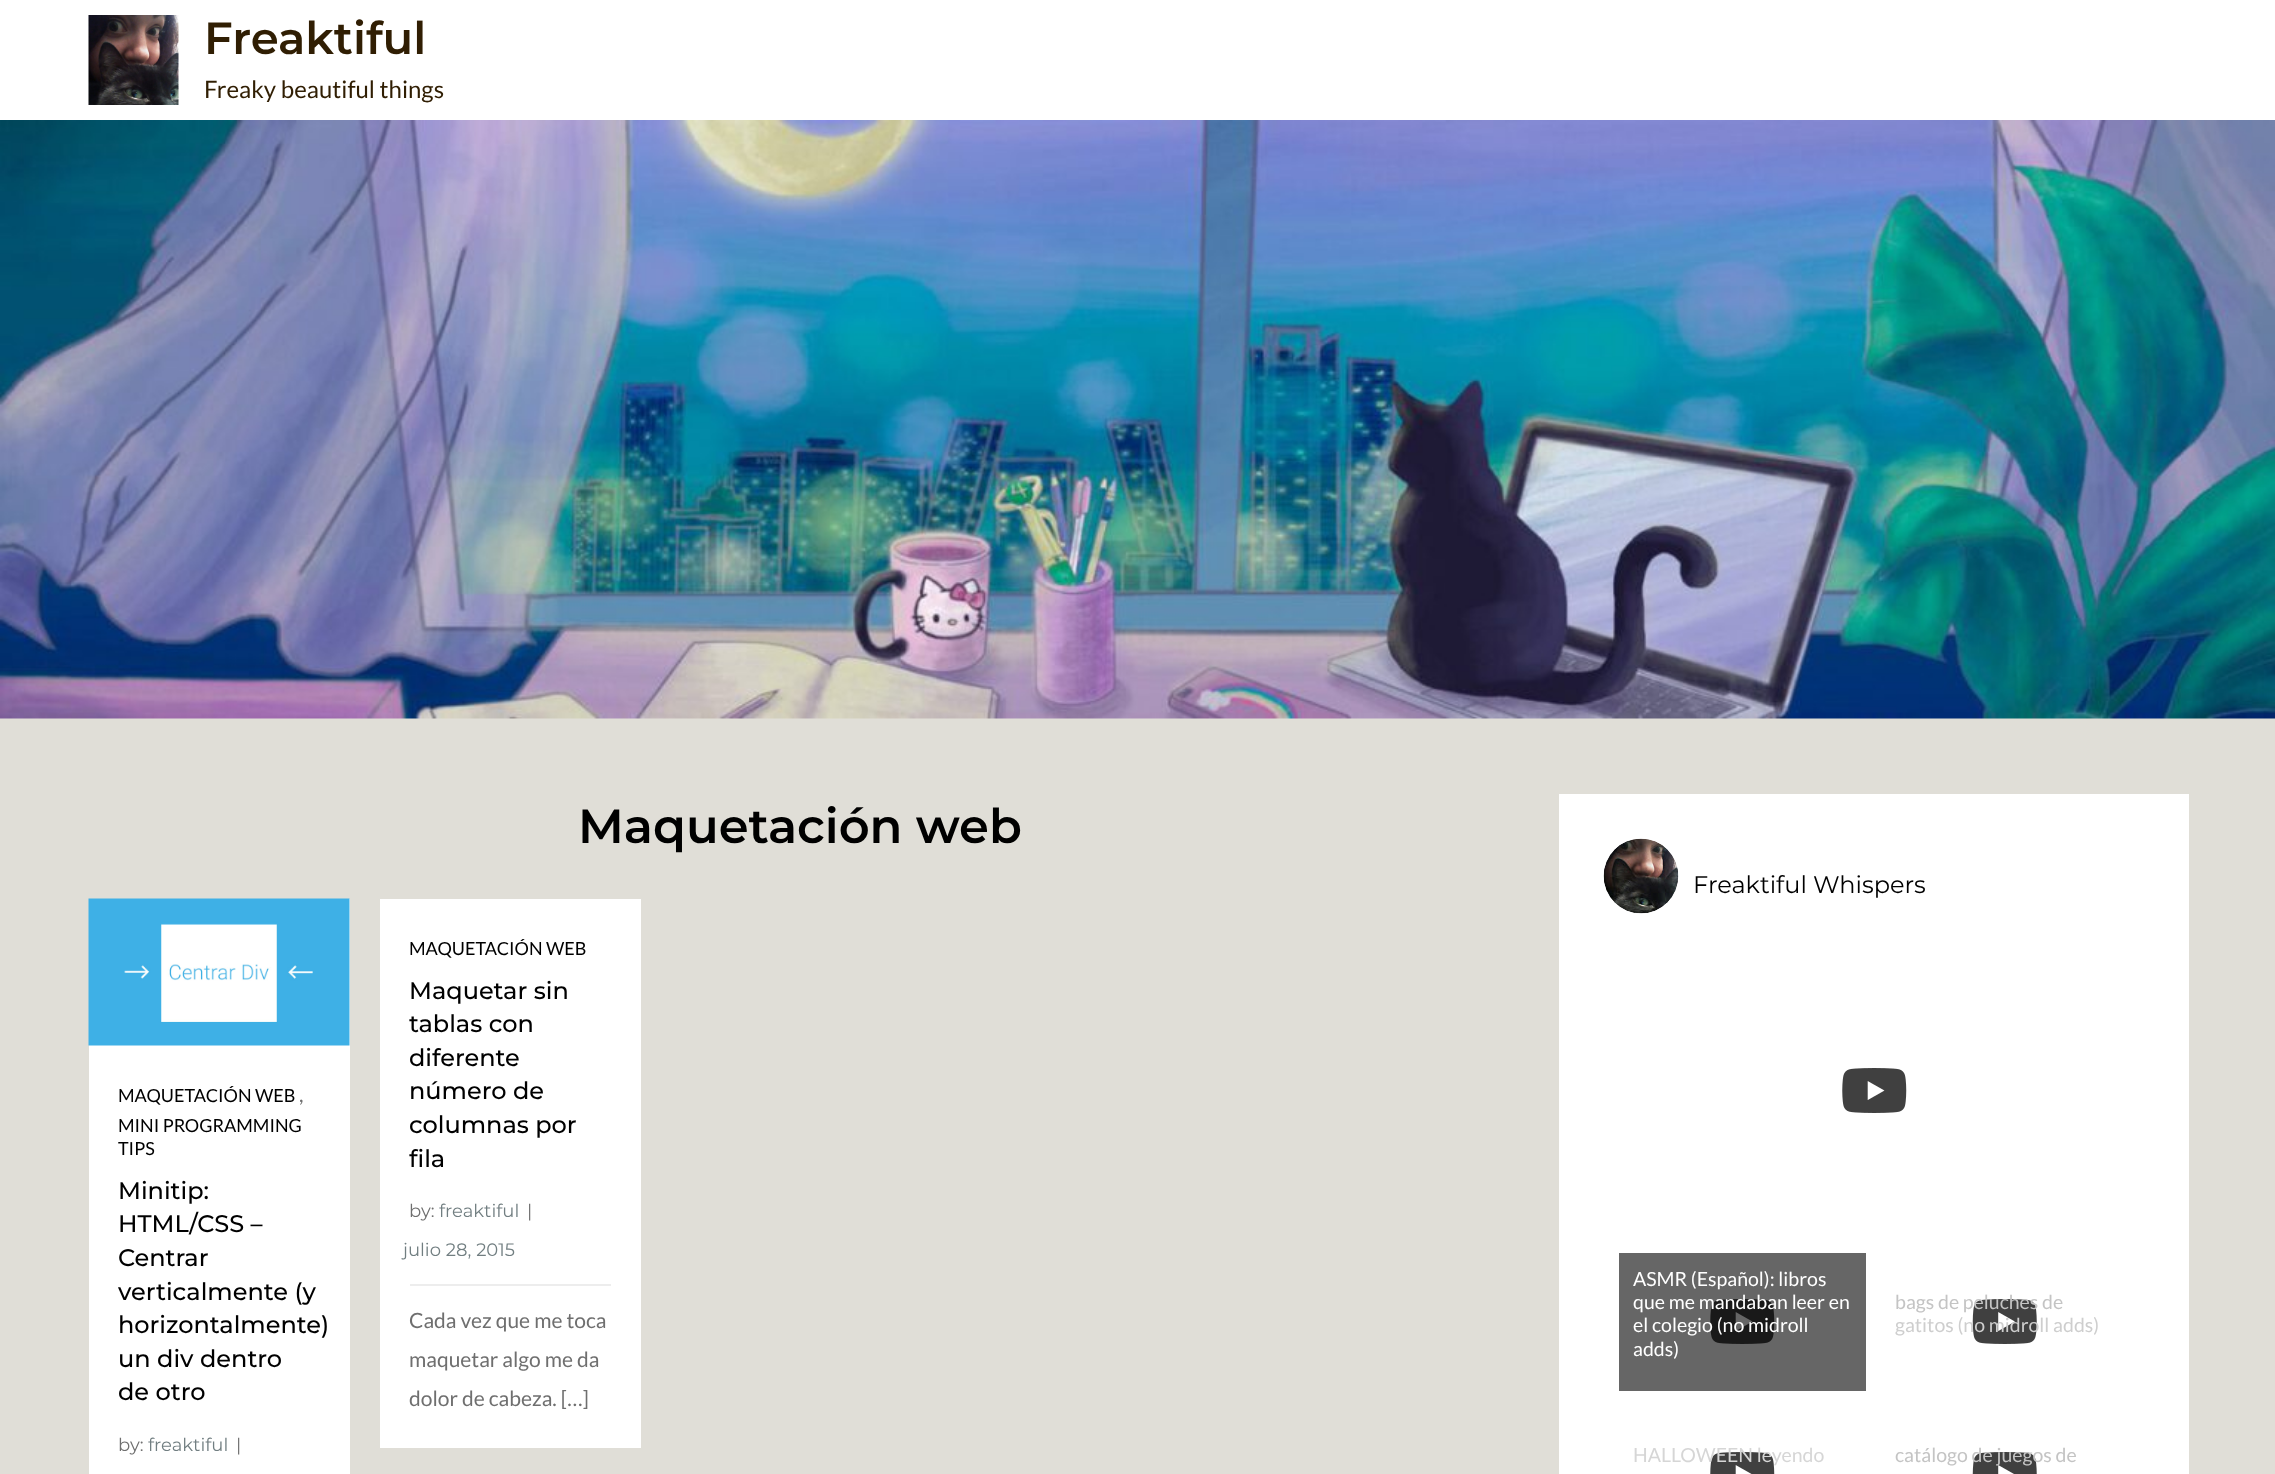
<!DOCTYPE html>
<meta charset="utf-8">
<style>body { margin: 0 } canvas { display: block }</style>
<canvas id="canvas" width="2275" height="1474"></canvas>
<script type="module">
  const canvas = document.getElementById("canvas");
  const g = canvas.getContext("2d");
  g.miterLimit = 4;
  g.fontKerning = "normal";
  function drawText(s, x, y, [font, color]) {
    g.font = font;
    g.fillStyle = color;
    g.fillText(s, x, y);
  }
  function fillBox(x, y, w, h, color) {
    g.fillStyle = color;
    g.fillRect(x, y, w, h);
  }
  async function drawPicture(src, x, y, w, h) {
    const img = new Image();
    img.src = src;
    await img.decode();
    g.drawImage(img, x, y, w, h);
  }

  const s1 = ["600 45px Montserrat", "#301E03"];
  const s2 = ["24px Lato", "#301E03"];
  const s3 = ["600 48px Montserrat", "#000000"];
  const s4 = ["18px Lato", "#000000"];
  const s5 = ["21px Lato", "#6F6F6F"];
  const s6 = ["500 24px Montserrat", "#000000"];
  const s7 = ["18px Montserrat", "#6F6F6F"];
  const s8 = ["18px Montserrat", "#717E81"];
  const s9 = ["24px Montserrat", "#000000"];
  const s10 = ["19.5px Lato", "#FFFFFF"];
  const s11 = ["19.5px Lato", "#C4C4C4"];
  const s12 = ["19.5px Lato", "#CECECE"];
  const s13 = ["19.5px Lato", "#D6D6D6"];

  fillBox(0, 0, 2275, 1474, "#E0DED7");
  fillBox(0, 0, 2275, 120, "#FFFFFF");
  await drawPicture("pic1.png", 88, 15, 91, 90);
  drawText("Freaktiful", 204, 54, s1);
  drawText("Freaky beautiful things", 204, 98, s2);
  await drawPicture("pic2.png", 0, 120, 2275, 599);
  drawText("Maquetación web", 578, 843, s3);
  fillBox(89, 899, 261, 575, "#FFFFFF");
  await drawPicture("pic3.png", 88, 898, 262, 148);
  drawText("MAQUETACIÓN WEB", 118, 1102, s4);
  drawText(",", 299, 1102, s5);
  drawText("MINI PROGRAMMING", 118, 1132, s4);
  drawText("TIPS", 118, 1155, s4);
  drawText("Minitip:", 118, 1199, s6);
  drawText("HTML/CSS –", 118, 1232, s6);
  drawText("Centrar", 118, 1266, s6);
  drawText("verticalmente (y", 118, 1300, s6);
  drawText("horizontalmente)", 118, 1333, s6);
  drawText("un div dentro", 118, 1367, s6);
  drawText("de otro", 118, 1400, s6);
  drawText("by:", 118, 1451, s7);
  drawText("freaktiful", 148, 1451, s8);
  drawText("|", 236, 1451, s7);
  fillBox(380, 899, 261, 549, "#FFFFFF");
  drawText("MAQUETACIÓN WEB", 409, 955, s4);
  drawText("Maquetar sin", 409, 999, s6);
  drawText("tablas con", 409, 1032, s6);
  drawText("diferente", 409, 1066, s6);
  drawText("número de", 409, 1099, s6);
  drawText("columnas por", 409, 1133, s6);
  drawText("fila", 409, 1167, s6);
  drawText("by:", 409, 1217, s7);
  drawText("freaktiful", 439, 1217, s8);
  drawText("|", 527, 1217, s7);
  drawText("julio 28, 2015", 403, 1256, s8);
  fillBox(410, 1284, 201, 2, "#EDEDED");
  drawText("Cada vez que me toca", 409, 1328, s5);
  drawText("maquetar algo me da", 409, 1367, s5);
  drawText("dolor de cabeza. […]", 409, 1406, s5);
  fillBox(1559, 794, 630, 680, "#FFFFFF");
  fillBox(1619, 1253, 247, 138, "#666666");
  await drawPicture("pic4.png", 1603, 838, 76, 76);
  drawText("Freaktiful Whispers", 1693, 893, s9);
  await drawPicture("pic5.png", 1842, 1068, 65, 45);
  drawText("ASMR (Español): libros", 1633, 1286, s10);
  await drawPicture("pic6.png", 1710, 1299, 65, 45);
  drawText("que me mandaban leer en", 1633, 1309, s10);
  drawText("el colegio (no midroll", 1633, 1332, s10);
  drawText("adds)", 1633, 1356, s10);
  await drawPicture("pic7.png", 1972, 1299, 65, 45);
  drawText("bags de peluches de", 1895, 1309, s11);
  drawText("gatitos (no midroll adds)", 1895, 1332, s12);
  await drawPicture("pic8.png", 1710, 1452, 65, 22);
  drawText("HALLOWEEN leyendo", 1633, 1462, s13);
  await drawPicture("pic9.png", 1972, 1452, 65, 22);
  drawText("catálogo de juegos de", 1895, 1462, s11);
</script>
